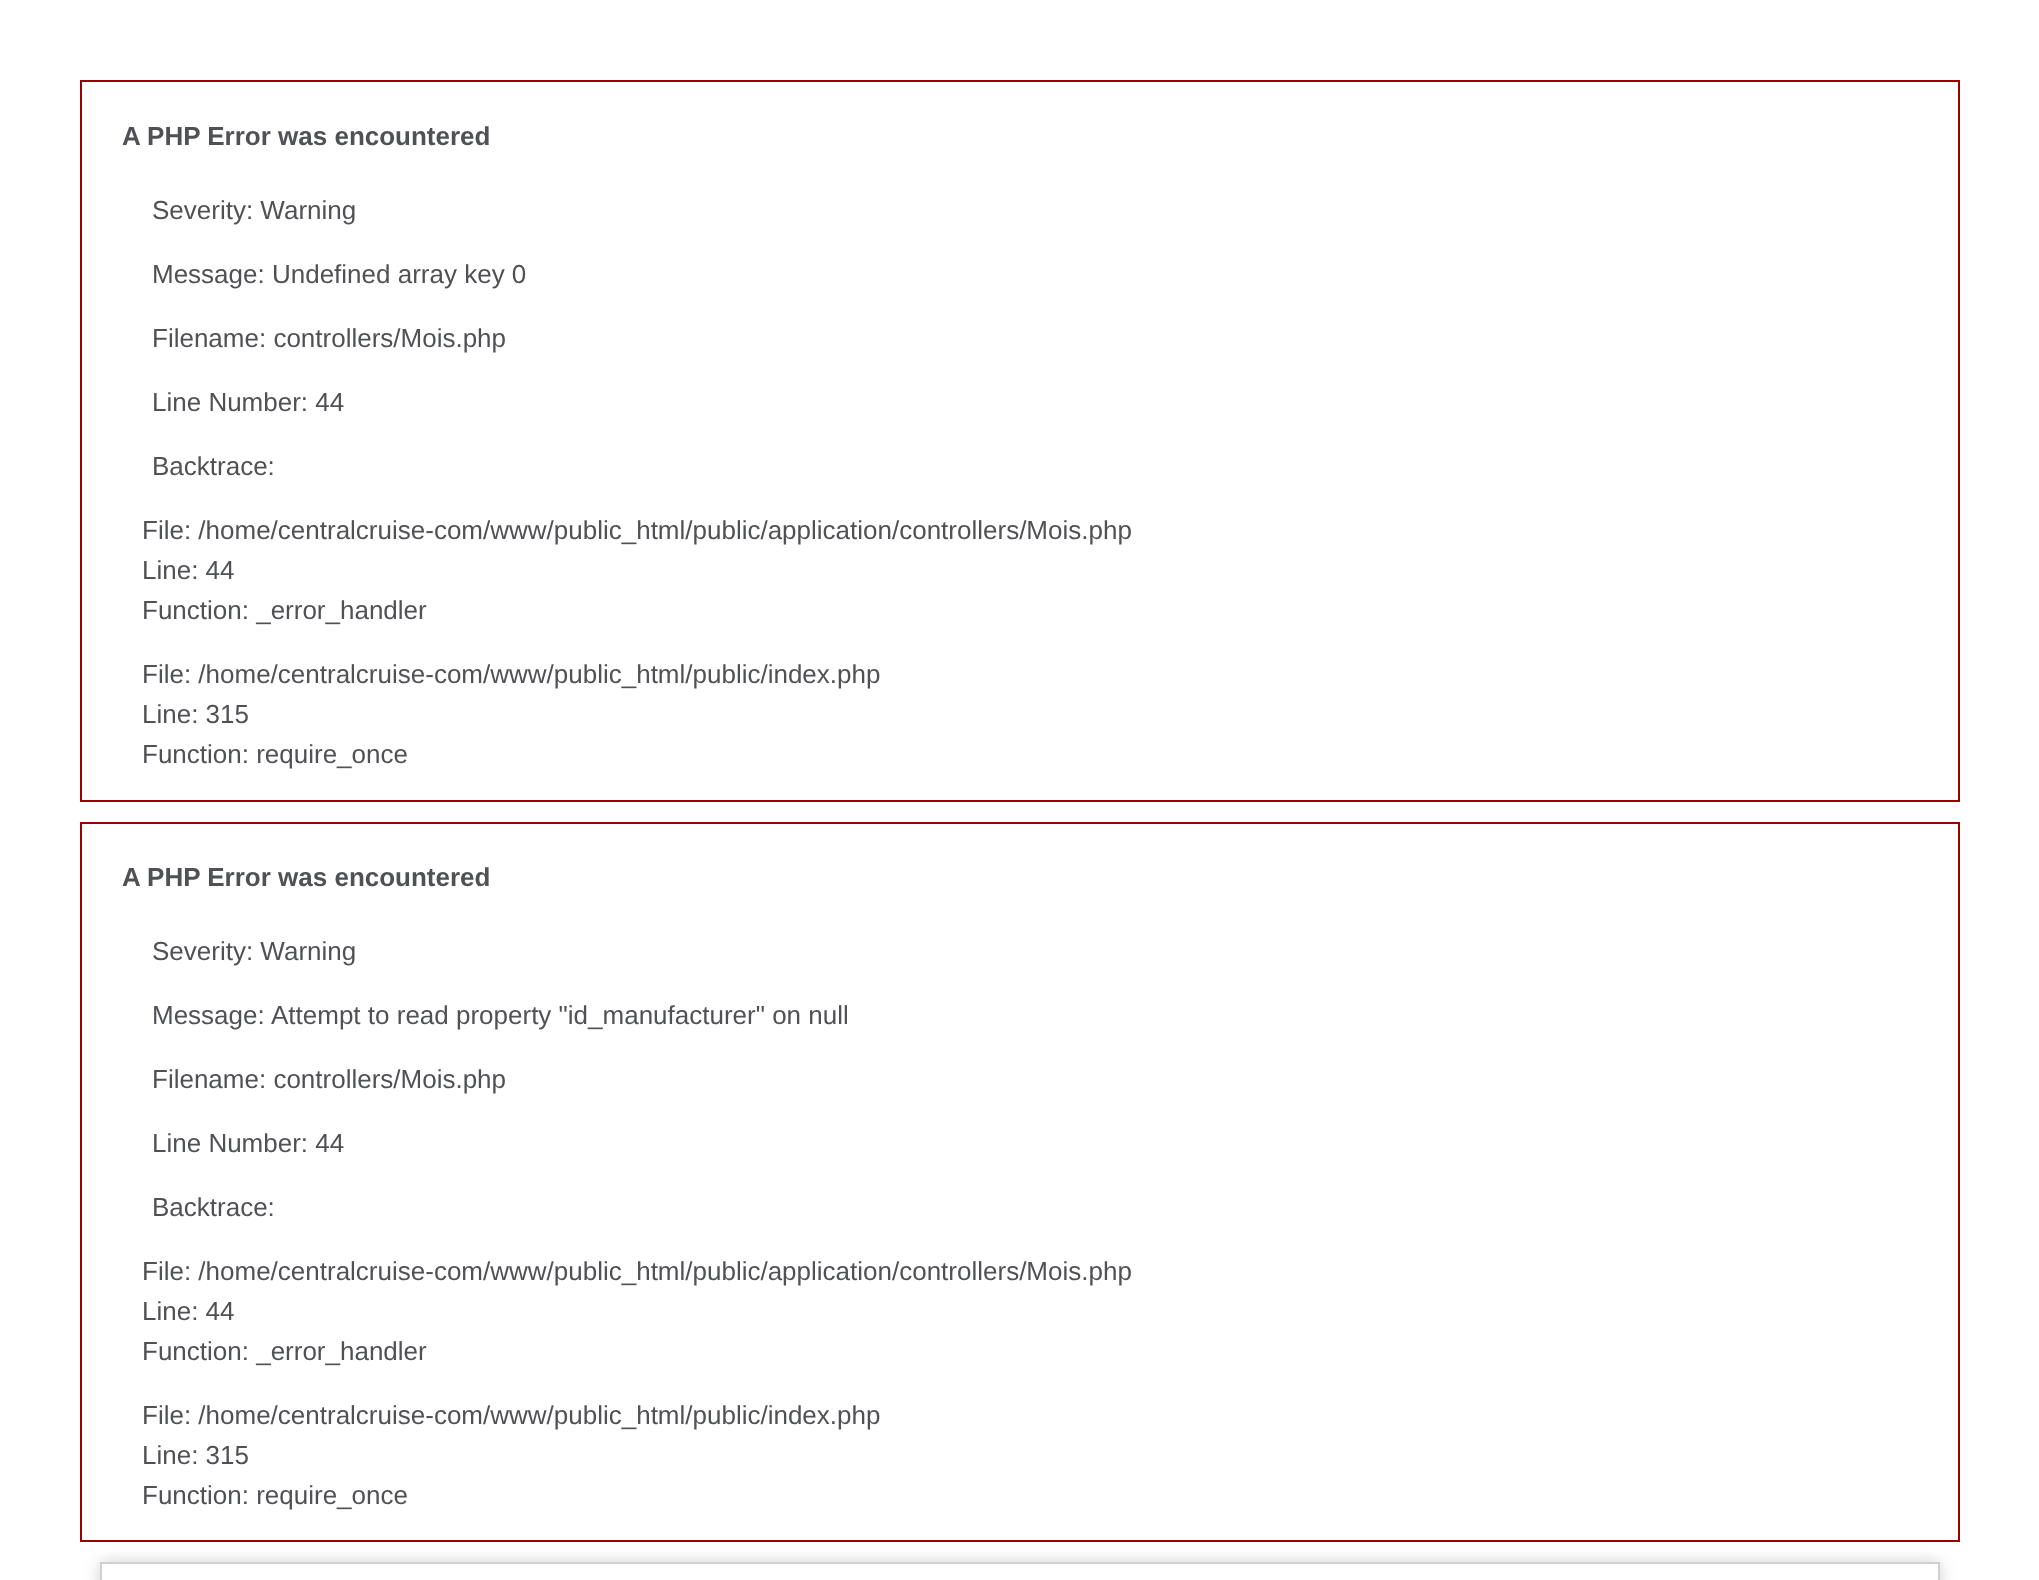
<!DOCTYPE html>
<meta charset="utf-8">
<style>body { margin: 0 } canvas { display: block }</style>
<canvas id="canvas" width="2039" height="1580"></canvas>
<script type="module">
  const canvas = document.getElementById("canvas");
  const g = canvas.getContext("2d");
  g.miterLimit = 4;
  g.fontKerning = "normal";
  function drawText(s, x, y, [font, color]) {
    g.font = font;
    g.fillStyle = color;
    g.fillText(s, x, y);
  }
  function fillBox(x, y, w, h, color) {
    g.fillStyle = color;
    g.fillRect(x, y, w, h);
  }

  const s1 = ["bold 26px Liberation Sans", "#4F5155"];
  const s2 = ["26px Liberation Sans", "#4F5155"];

  fillBox(0, 0, 2039, 1580, "#FFFFFF");
  g.strokeStyle = "#990000";
  g.lineWidth = 2;
  g.strokeRect(81, 81, 1878, 720);
  drawText("A PHP Error was encountered", 122, 145, s1);
  drawText("Severity: Warning", 152, 219, s2);
  drawText("Message: Undefined array key 0", 152, 283, s2);
  drawText("Filename: controllers/Mois.php", 152, 347, s2);
  drawText("Line Number: 44", 152, 411, s2);
  drawText("Backtrace:", 152, 475, s2);
  drawText("File: /home/centralcruise-com/www/public_html/public/application/controllers/Mois.php", 142, 539, s2);
  drawText("Line: 44", 142, 579, s2);
  drawText("Function: _error_handler", 142, 619, s2);
  drawText("File: /home/centralcruise-com/www/public_html/public/index.php", 142, 683, s2);
  drawText("Line: 315", 142, 723, s2);
  drawText("Function: require_once", 142, 763, s2);
  g.strokeRect(81, 823, 1878, 718);
  drawText("A PHP Error was encountered", 122, 886, s1);
  drawText("Severity: Warning", 152, 960, s2);
  drawText("Message:", 152, 1024, s2);
  drawText("Attempt to read property \"id_manufacturer\" on null", 271, 1024, s2);
  drawText("Filename: controllers/Mois.php", 152, 1088, s2);
  drawText("Line Number: 44", 152, 1152, s2);
  drawText("Backtrace:", 152, 1216, s2);
  drawText("File: /home/centralcruise-com/www/public_html/public/application/controllers/Mois.php", 142, 1280, s2);
  drawText("Line: 44", 142, 1320, s2);
  drawText("Function: _error_handler", 142, 1360, s2);
  drawText("File: /home/centralcruise-com/www/public_html/public/index.php", 142, 1424, s2);
  drawText("Line: 315", 142, 1464, s2);
  drawText("Function: require_once", 142, 1504, s2);
  g.save();
  g.beginPath();
  g.moveTo(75, 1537);
  g.lineTo(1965, 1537);
  g.lineTo(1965, 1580);
  g.lineTo(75, 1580);
  g.closePath();
  g.moveTo(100, 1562);
  g.lineTo(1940, 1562);
  g.lineTo(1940, 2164);
  g.lineTo(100, 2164);
  g.closePath();
  g.clip("evenodd");
  g.fillStyle = "#D0D0D0";
  g.filter = "blur(8px)";
  g.beginPath();
  g.rect(100, 1562, 1840, 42);
  g.fill();
  g.filter = "none";
  g.restore();
  g.strokeStyle = "#D0D0D0";
  g.strokeRect(101, 1563, 1838, 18);
</script>
